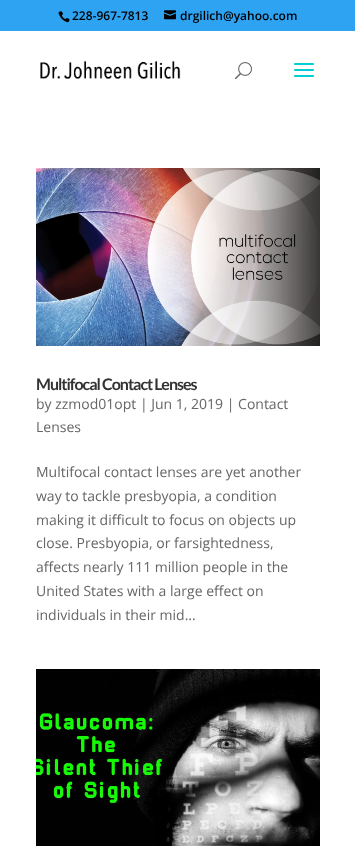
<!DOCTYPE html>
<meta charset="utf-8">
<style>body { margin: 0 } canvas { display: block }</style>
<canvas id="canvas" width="355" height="867"></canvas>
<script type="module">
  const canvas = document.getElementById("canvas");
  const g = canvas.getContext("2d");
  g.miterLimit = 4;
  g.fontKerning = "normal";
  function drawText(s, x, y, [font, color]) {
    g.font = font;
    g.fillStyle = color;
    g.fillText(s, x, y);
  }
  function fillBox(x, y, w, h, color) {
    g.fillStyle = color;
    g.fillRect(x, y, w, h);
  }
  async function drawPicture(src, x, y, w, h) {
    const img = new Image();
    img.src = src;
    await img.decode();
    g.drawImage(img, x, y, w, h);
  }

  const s1 = ["600 12px Open Sans", "#000000"];
  const s2 = ["bold 16px Lato", "#333333"];
  const s3 = ["14px Open Sans", "#666666"];

  fillBox(0, 0, 355, 867, "#FFFFFF");
  fillBox(0, 0, 355, 31, "#2EA3F2");
  await drawPicture("pic1.png", 58, 11, 12, 12);
  drawText("228-967-7813", 72, 20, s1);
  await drawPicture("pic2.png", 164, 10, 12, 10);
  drawText("drgilich@yahoo.com", 180, 20, s1);
  await drawPicture("pic3.png", 40, 61, 141, 18);
  await drawPicture("pic4.png", 235, 62, 17, 18);
  await drawPicture("pic5.png", 294, 63, 20, 14);
  await drawPicture("pic6.png", 36, 168, 284, 178);
  g.letterSpacing = "-1px";
  drawText("Multifocal Contact Lenses", 36, 390, s2);
  g.letterSpacing = "0px";
  drawText("by zzmod01opt | Jun 1, 2019 | Contact", 36, 409, s3);
  drawText("Lenses", 36, 432, s3);
  drawText("Multifocal contact lenses are yet another", 36, 477, s3);
  drawText("way to tackle presbyopia, a condition", 36, 501, s3);
  drawText("making it difficult to focus on objects up", 36, 525, s3);
  drawText("close. Presbyopia, or farsightedness,", 36, 548, s3);
  drawText("affects nearly 111 million people in the", 36, 572, s3);
  drawText("United States with a large effect on", 36, 596, s3);
  drawText("individuals in their mid...", 36, 620, s3);
  await drawPicture("pic7.png", 36, 669, 284, 177);
</script>
